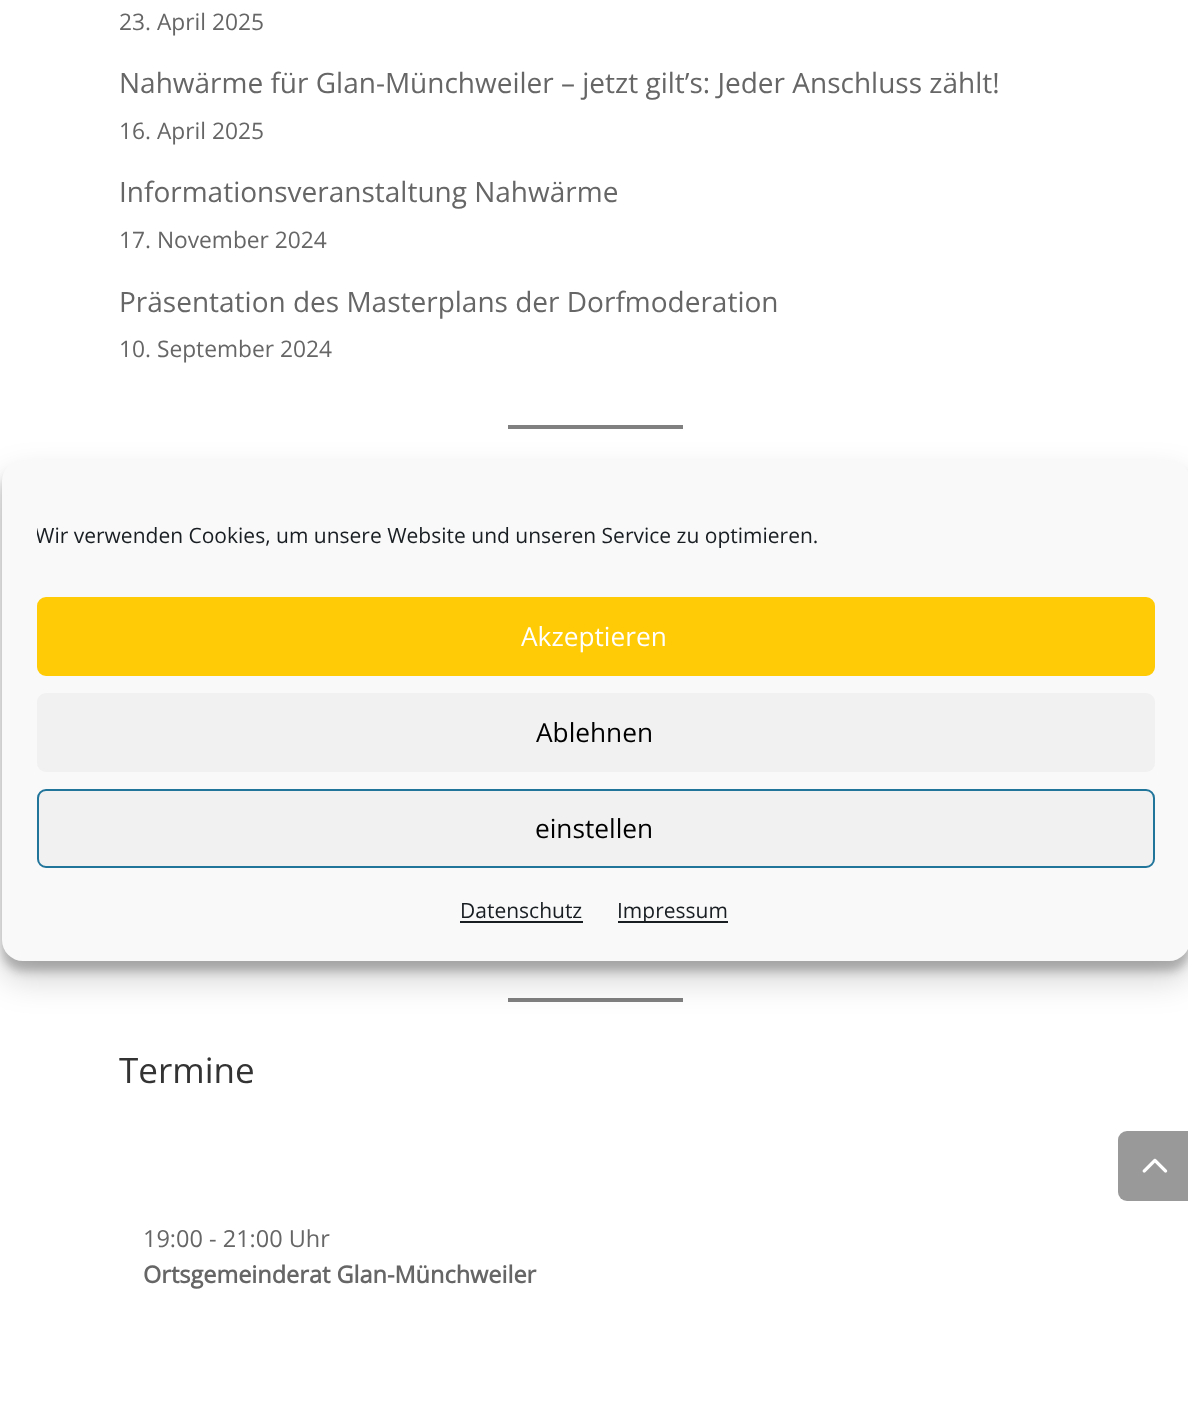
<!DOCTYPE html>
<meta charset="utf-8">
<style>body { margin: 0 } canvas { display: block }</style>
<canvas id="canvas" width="1188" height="1418"></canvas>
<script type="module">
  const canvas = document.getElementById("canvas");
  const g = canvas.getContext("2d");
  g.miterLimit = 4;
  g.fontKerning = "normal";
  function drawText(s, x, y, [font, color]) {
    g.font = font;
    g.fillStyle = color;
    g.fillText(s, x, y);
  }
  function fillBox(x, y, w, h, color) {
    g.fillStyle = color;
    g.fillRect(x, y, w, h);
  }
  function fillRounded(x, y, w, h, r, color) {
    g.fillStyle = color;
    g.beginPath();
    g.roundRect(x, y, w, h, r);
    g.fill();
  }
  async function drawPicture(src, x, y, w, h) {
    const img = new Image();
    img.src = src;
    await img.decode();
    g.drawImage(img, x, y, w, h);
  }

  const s1 = ["22.75px Open Sans", "#666666"];
  const s2 = ["28px Open Sans", "#666666"];
  const s3 = ["35px Open Sans", "#333333"];
  const s4 = ["23.5px Open Sans", "#666666"];
  const s5 = ["bold 23.5px Open Sans", "#666666"];
  const s6 = ["21px Open Sans", "#191E23"];
  const s7 = ["26.25px Open Sans", "#FFFFFF"];
  const s8 = ["26.25px Open Sans", "#000000"];

  fillBox(0, 0, 1188, 1418, "#FFFFFF");
  drawText("23. April 2025", 119, 30, s1);
  drawText("Nahwärme für Glan-Münchweiler – jetzt gilt’s: Jeder Anschluss zählt!", 119, 93, s2);
  drawText("16. April 2025", 119, 139, s1);
  drawText("Informationsveranstaltung Nahwärme", 119, 202, s2);
  drawText("17. November 2024", 119, 248, s1);
  drawText("Präsentation des Masterplans der Dorfmoderation", 119, 312, s2);
  drawText("10. September 2024", 119, 357, s1);
  fillBox(508, 425, 175, 4, "#808080");
  fillBox(508, 998, 175, 4, "#808080");
  drawText("Termine", 119, 1083, s3);
  drawText("19:00 - 21:00 Uhr", 143, 1247, s4);
  drawText("Ortsgemeinderat Glan-Münchweiler", 143, 1283, s5);
  g.fillStyle = "#999999";
  g.beginPath();
  g.roundRect(1118, 1131, 70, 70, [9, 0, 0, 9]);
  g.fill();
  await drawPicture("pic1.png", 1142, 1158, 26, 15);
  g.fillStyle = "rgba(0, 0, 0, 0.23)";
  g.filter = "blur(5px)";
  g.beginPath();
  g.roundRect(2, 471, 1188, 500, 21);
  g.fill();
  g.filter = "none";
  g.fillStyle = "rgba(0, 0, 0, 0.19)";
  g.filter = "blur(17.5px)";
  g.beginPath();
  g.roundRect(2, 478, 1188, 500, 21);
  g.fill();
  g.filter = "none";
  fillRounded(2, 460, 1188, 501, 21, "#F9F9F9");
  g.save();
  g.beginPath();
  g.rect(37, 522, 1118, 40);
  g.clip();
  drawText("Wir verwenden Cookies, um unsere Website und unseren Service zu optimieren.", 35, 543, s6);
  g.restore();
  g.fillStyle = "#FFCB06";
  g.beginPath();
  g.roundRect(38, 598, 1116, 77, 8);
  g.fill();
  g.strokeStyle = "#FFCB06";
  g.lineWidth = 2;
  g.stroke();
  drawText("Akzeptieren", 521, 646, s7);
  fillRounded(37, 693, 1118, 79, 9, "#F1F1F1");
  drawText("Ablehnen", 536, 742, s8);
  g.fillStyle = "#F1F1F1";
  g.beginPath();
  g.roundRect(38, 790, 1116, 77, 8);
  g.fill();
  g.strokeStyle = "#21759B";
  g.stroke();
  drawText("einstellen", 535, 838, s8);
  drawText("Datenschutz", 460, 918, s6);
  fillBox(460, 921, 123, 2, "#191E23");
  fillBox(618, 921, 110, 2, "#191E23");
  drawText("Impressum", 617, 918, s6);
</script>
